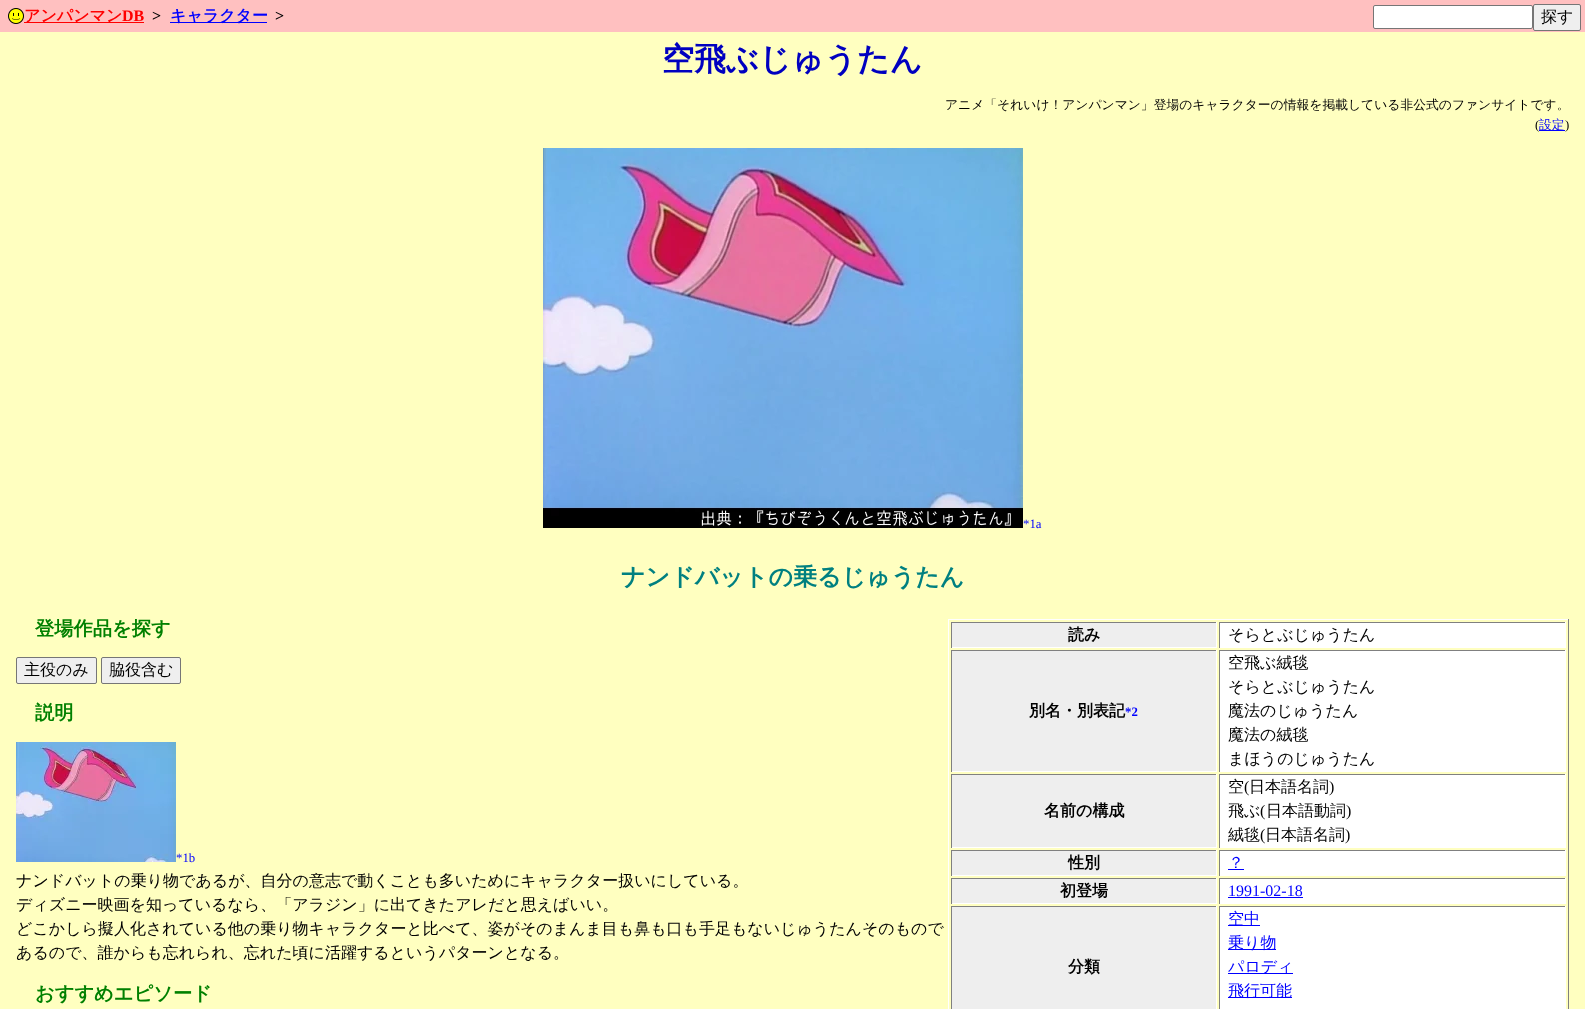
<!DOCTYPE html>
<meta charset="utf-8">
<style>body { margin: 0 } canvas { display: block }</style>
<canvas id="canvas" width="1585" height="1009"></canvas>
<script type="module">
  const canvas = document.getElementById("canvas");
  const g = canvas.getContext("2d");
  g.miterLimit = 4;
  g.fontKerning = "normal";
  function drawText(s, x, y, [font, color]) {
    g.font = font;
    g.fillStyle = color;
    g.fillText(s, x, y);
  }
  function fillBox(x, y, w, h, color) {
    g.fillStyle = color;
    g.fillRect(x, y, w, h);
  }
  async function drawPicture(src, x, y, w, h) {
    const img = new Image();
    img.src = src;
    await img.decode();
    g.drawImage(img, x, y, w, h);
  }

  const s1 = ["bold 16px WenQuanYi Zen Hei", "#FF0000"];
  const s2 = ["bold 16px Liberation Serif", "#FF0000"];
  const s3 = ["bold 16px Liberation Serif", "#000000"];
  const s4 = ["bold 16px WenQuanYi Zen Hei", "#0000FF"];
  const s5 = ["500 16px WenQuanYi Zen Hei", "#000000"];
  const s6 = ["bold 32px WenQuanYi Zen Hei", "#0000C0"];
  const s7 = ["500 12.8px WenQuanYi Zen Hei", "#000000"];
  const s8 = ["12.8px Liberation Serif", "#000000"];
  const s9 = ["500 12.8px WenQuanYi Zen Hei", "#0000FF"];
  const s10 = ["12.8px Liberation Serif", "#0000FF"];
  const s11 = ["bold 24px WenQuanYi Zen Hei", "#008080"];
  const s12 = ["bold 19.25px WenQuanYi Zen Hei", "#008000"];
  const s13 = ["bold 16px WenQuanYi Zen Hei", "#000000"];
  const s14 = ["bold 12.8px Liberation Serif", "#0000FF"];
  const s15 = ["16px Liberation Serif", "#000000"];
  const s16 = ["500 16px WenQuanYi Zen Hei", "#0000FF"];
  const s17 = ["16px Liberation Serif", "#0000FF"];

  fillBox(0, 0, 1585, 1009, "#FFFFC0");
  fillBox(0, 0, 1585, 32, "#FFC0C0");
  await drawPicture("pic1.png", 8, 8, 16, 16);
  fillBox(24, 22, 120, 1, "#FF0000");
  drawText("アンパンマン", 24, 21, s1);
  drawText("DB", 122, 21, s2);
  drawText(">", 152, 21, s3);
  fillBox(170, 22, 97, 1, "#0000FF");
  drawText("キャラクター", 170, 21, s4);
  drawText(">", 275, 21, s3);
  g.fillStyle = "#FFFFFF";
  g.beginPath();
  g.roundRect(1373.5, 5.5, 159, 23, 1.5);
  g.fill();
  g.strokeStyle = "#767676";
  g.stroke();
  g.fillStyle = "#EFEFEF";
  g.beginPath();
  g.roundRect(1533.5, 4.5, 47, 26, 1.5);
  g.fill();
  g.stroke();
  drawText("探す", 1541, 22, s5);
  drawText("空飛ぶじゅうたん", 662, 70, s6);
  drawText("アニメ「それいけ！アンパンマン」登場のキャラクターの情報を掲載している非公式のファンサイトです。", 945, 109, s7);
  drawText("(", 1535, 129, s8);
  fillBox(1539, 130, 26, 1, "#0000FF");
  drawText("設定", 1539, 129, s9);
  drawText(")", 1565, 129, s8);
  await drawPicture("pic2.png", 543, 148, 480, 380);
  drawText("*1a", 1023, 528, s10);
  drawText("ナンドバットの乗るじゅうたん", 621, 585, s11);
  drawText("登場作品を探す", 35, 635, s12);
  g.fillStyle = "#EFEFEF";
  g.beginPath();
  g.roundRect(16.5, 657.5, 80, 26, 1.5);
  g.fill();
  g.stroke();
  drawText("主役のみ", 24, 675, s5);
  g.fillStyle = "#EFEFEF";
  g.beginPath();
  g.roundRect(101.5, 657.5, 79, 26, 1.5);
  g.fill();
  g.stroke();
  drawText("脇役含む", 109, 675, s5);
  fillBox(948, 619, 621, 1, "#FFFFFF");
  fillBox(1568, 619, 1, 390, "#808080");
  fillBox(948, 619, 1, 390, "#FFFFFF");
  fillBox(952, 623, 264, 24, "#EEEEEE");
  fillBox(951, 622, 266, 1, "#808080");
  fillBox(1216, 622, 1, 26, "#FFFFFF");
  fillBox(951, 647, 266, 1, "#FFFFFF");
  fillBox(951, 622, 1, 26, "#808080");
  drawText("読み", 1068, 640, s13);
  fillBox(1220, 623, 345, 25, "#FFFFFF");
  fillBox(1219, 622, 347, 1, "#808080");
  fillBox(1565, 622, 1, 26, "#FFFFFF");
  fillBox(1219, 622, 1, 26, "#808080");
  drawText("そらとぶじゅうたん", 1228, 640, s5);
  fillBox(952, 651, 264, 120, "#EEEEEE");
  fillBox(951, 650, 266, 1, "#808080");
  fillBox(1216, 650, 1, 122, "#FFFFFF");
  fillBox(951, 771, 266, 1, "#FFFFFF");
  fillBox(951, 650, 1, 122, "#808080");
  drawText("別名・別表記", 1029, 716, s13);
  drawText("*2", 1125, 716, s14);
  fillBox(1220, 651, 345, 121, "#FFFFFF");
  fillBox(1219, 650, 347, 1, "#808080");
  fillBox(1565, 650, 1, 122, "#FFFFFF");
  fillBox(1219, 650, 1, 122, "#808080");
  drawText("空飛ぶ絨毯", 1228, 668, s5);
  drawText("そらとぶじゅうたん", 1228, 692, s5);
  drawText("魔法のじゅうたん", 1228, 716, s5);
  drawText("魔法の絨毯", 1228, 740, s5);
  drawText("まほうのじゅうたん", 1228, 764, s5);
  fillBox(952, 775, 264, 72, "#EEEEEE");
  fillBox(951, 774, 266, 1, "#808080");
  fillBox(1216, 774, 1, 74, "#FFFFFF");
  fillBox(951, 847, 266, 1, "#FFFFFF");
  fillBox(951, 774, 1, 74, "#808080");
  drawText("名前の構成", 1044, 816, s13);
  fillBox(1220, 775, 345, 73, "#FFFFFF");
  fillBox(1219, 774, 347, 1, "#808080");
  fillBox(1565, 774, 1, 74, "#FFFFFF");
  fillBox(1219, 774, 1, 74, "#808080");
  drawText("空", 1228, 792, s5);
  drawText("(", 1244, 792, s15);
  drawText("日本語名詞", 1249, 792, s5);
  drawText(")", 1329, 792, s15);
  drawText("飛ぶ", 1228, 816, s5);
  drawText("(", 1260, 816, s15);
  drawText("日本語動詞", 1266, 816, s5);
  drawText(")", 1346, 816, s15);
  drawText("絨毯", 1228, 840, s5);
  drawText("(", 1260, 840, s15);
  drawText("日本語名詞", 1265, 840, s5);
  drawText(")", 1345, 840, s15);
  fillBox(952, 851, 264, 24, "#EEEEEE");
  fillBox(951, 850, 266, 1, "#808080");
  fillBox(1216, 850, 1, 26, "#FFFFFF");
  fillBox(951, 875, 266, 1, "#FFFFFF");
  fillBox(951, 850, 1, 26, "#808080");
  drawText("性別", 1068, 868, s13);
  fillBox(1220, 851, 345, 25, "#FFFFFF");
  fillBox(1219, 850, 347, 1, "#808080");
  fillBox(1565, 850, 1, 26, "#FFFFFF");
  fillBox(1219, 850, 1, 26, "#808080");
  drawText("？", 1228, 868, s16);
  fillBox(1228, 869, 16, 1, "#0000FF");
  fillBox(952, 879, 264, 24, "#EEEEEE");
  fillBox(951, 878, 266, 1, "#808080");
  fillBox(1216, 878, 1, 26, "#FFFFFF");
  fillBox(951, 903, 266, 1, "#FFFFFF");
  fillBox(951, 878, 1, 26, "#808080");
  drawText("初登場", 1060, 896, s13);
  fillBox(1220, 879, 345, 25, "#FFFFFF");
  fillBox(1219, 878, 347, 1, "#808080");
  fillBox(1565, 878, 1, 26, "#FFFFFF");
  fillBox(1219, 878, 1, 26, "#808080");
  drawText("1991-02-18", 1228, 896, s17);
  fillBox(1228, 897, 75, 1, "#0000FF");
  fillBox(952, 907, 264, 102, "#EEEEEE");
  fillBox(951, 906, 266, 1, "#808080");
  fillBox(1216, 906, 1, 103, "#FFFFFF");
  fillBox(951, 906, 1, 103, "#808080");
  drawText("分類", 1068, 972, s13);
  fillBox(1220, 907, 345, 102, "#FFFFFF");
  fillBox(1219, 906, 347, 1, "#808080");
  fillBox(1565, 906, 1, 103, "#FFFFFF");
  fillBox(1219, 906, 1, 103, "#808080");
  fillBox(1228, 925, 32, 1, "#0000FF");
  drawText("空中", 1228, 924, s16);
  fillBox(1228, 949, 48, 1, "#0000FF");
  drawText("乗り物", 1228, 948, s16);
  fillBox(1228, 973, 65, 1, "#0000FF");
  drawText("パロディ", 1228, 972, s16);
  fillBox(1228, 997, 64, 1, "#0000FF");
  drawText("飛行可能", 1228, 996, s16);
  drawText("説明", 35, 719, s12);
  await drawPicture("pic3.png", 16, 742, 160, 120);
  drawText("*1b", 176, 862, s10);
  drawText("ナンドバットの乗り物であるが、自分の意志で動くことも多いためにキャラクター扱いにしている。", 16, 886, s5);
  drawText("ディズニー映画を知っているなら、「アラジン」に出てきたアレだと思えばいい。", 16, 910, s5);
  drawText("どこかしら擬人化されている他の乗り物キャラクターと比べて、姿がそのまんま目も鼻も口も手足もないじゅうたんそのもので", 16, 934, s5);
  drawText("あるので、誰からも忘れられ、忘れた頃に活躍するというパターンとなる。", 16, 958, s5);
  drawText("おすすめエピソード", 35, 1000, s12);
</script>
